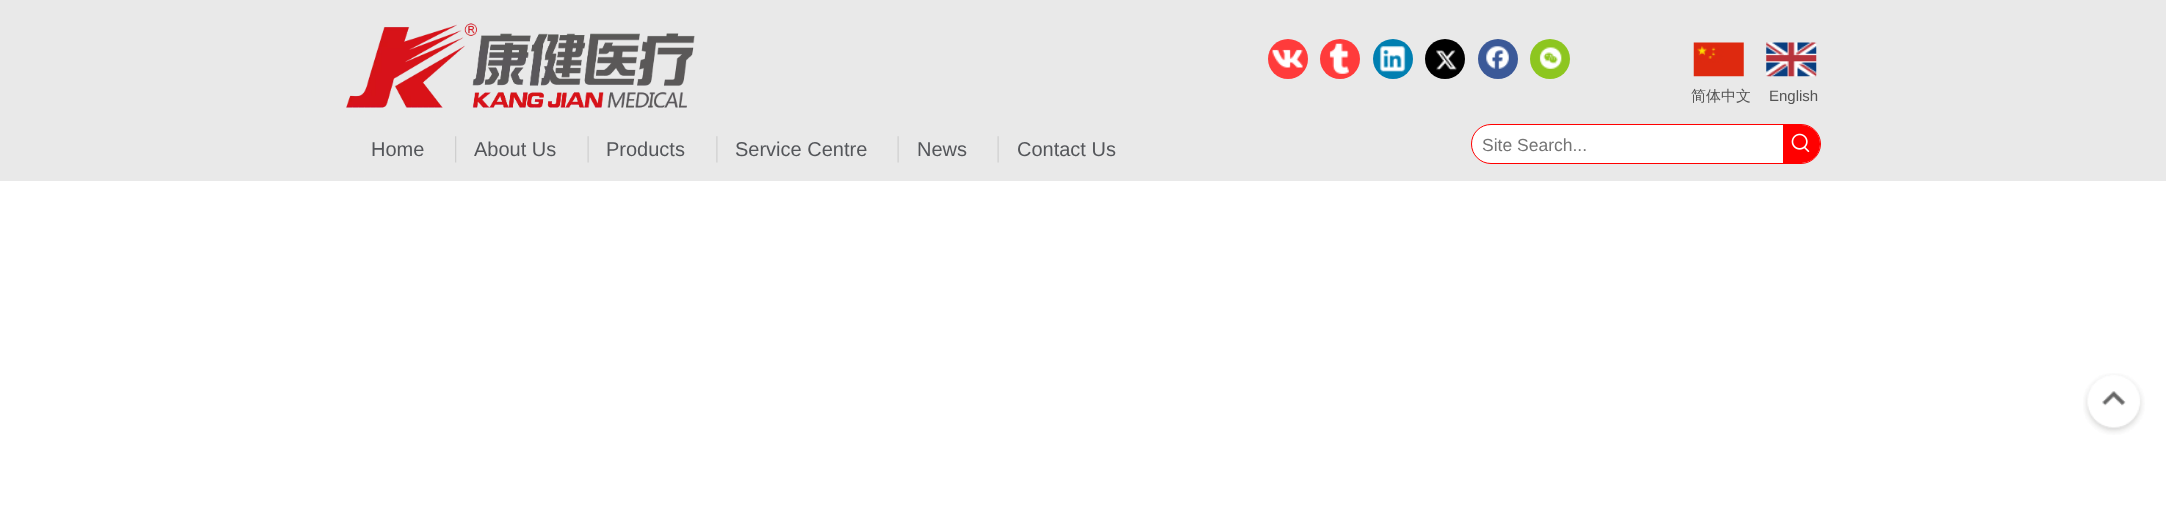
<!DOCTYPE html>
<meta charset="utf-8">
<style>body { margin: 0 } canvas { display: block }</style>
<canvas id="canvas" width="2166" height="506"></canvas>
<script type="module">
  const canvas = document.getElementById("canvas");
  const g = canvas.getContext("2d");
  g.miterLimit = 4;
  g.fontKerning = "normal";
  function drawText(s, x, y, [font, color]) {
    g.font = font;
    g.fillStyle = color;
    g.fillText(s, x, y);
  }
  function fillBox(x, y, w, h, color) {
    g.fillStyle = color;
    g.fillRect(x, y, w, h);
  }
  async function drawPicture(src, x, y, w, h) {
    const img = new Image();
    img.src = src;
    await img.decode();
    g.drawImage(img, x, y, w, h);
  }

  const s1 = ["500 15px WenQuanYi Zen Hei", "#545454"];
  const s2 = ["15px Liberation Sans", "#545454"];
  const s3 = ["20px Liberation Sans", "#54565A"];
  const s4 = ["17.5px Liberation Sans", "#757575"];

  fillBox(0, 0, 2166, 506, "#FFFFFF");
  fillBox(0, 0, 2166, 181, "#E9E9E9");
  await drawPicture("pic1.png", 346, 23, 349, 85);
  g.fillStyle = "#FF3B3B";
  g.beginPath();
  g.arc(1288, 59, 20, 0, Math.PI * 2);
  g.fill();
  await drawPicture("pic2.png", 1272, 49, 31, 19);
  g.beginPath();
  g.arc(1340, 59, 20, 0, Math.PI * 2);
  g.fill();
  await drawPicture("pic3.png", 1329, 43, 20, 31);
  g.fillStyle = "#007FB1";
  g.beginPath();
  g.arc(1393, 59, 20, 0, Math.PI * 2);
  g.fill();
  await drawPicture("pic4.png", 1379, 46, 27, 26);
  g.fillStyle = "#000000";
  g.beginPath();
  g.arc(1445, 59, 20, 0, Math.PI * 2);
  g.fill();
  await drawPicture("pic5.png", 1436, 50, 21, 21);
  g.fillStyle = "#3B5998";
  g.beginPath();
  g.arc(1498, 59, 20, 0, Math.PI * 2);
  g.fill();
  await drawPicture("pic6.png", 1486, 46, 23, 23);
  g.fillStyle = "#8DC61F";
  g.beginPath();
  g.arc(1550, 59, 20, 0, Math.PI * 2);
  g.fill();
  await drawPicture("pic7.png", 1539, 47, 23, 22);
  await drawPicture("pic8.png", 1693, 42, 51, 35);
  drawText("简体中文", 1691, 101, s1);
  await drawPicture("pic9.png", 1766, 42, 51, 35);
  drawText("English", 1769, 101, s2);
  drawText("Home", 371, 156, s3);
  await drawPicture("pic10.png", 455, 136, 2, 27);
  drawText("About Us", 474, 156, s3);
  await drawPicture("pic11.png", 587, 136, 2, 27);
  drawText("Products", 606, 156, s3);
  await drawPicture("pic12.png", 716, 136, 2, 27);
  drawText("Service Centre", 735, 156, s3);
  await drawPicture("pic11.png", 897, 136, 2, 27);
  drawText("News", 917, 156, s3);
  await drawPicture("pic11.png", 997, 136, 2, 27);
  drawText("Contact Us", 1017, 156, s3);
  g.fillStyle = "#FFFFFF";
  g.beginPath();
  g.roundRect(1471.5, 124.5, 349, 39, 19.5);
  g.fill();
  g.strokeStyle = "#FF0000";
  g.stroke();
  drawText("Site Search...", 1482, 151, s4);
  g.fillStyle = "#FF0000";
  g.beginPath();
  g.roundRect(1783, 125, 37, 38, [0, 18.5, 18.5, 0]);
  g.fill();
  await drawPicture("pic13.png", 1791, 133, 19, 20);
  await drawPicture("pic14.png", 2083, 373, 62, 62);
</script>
